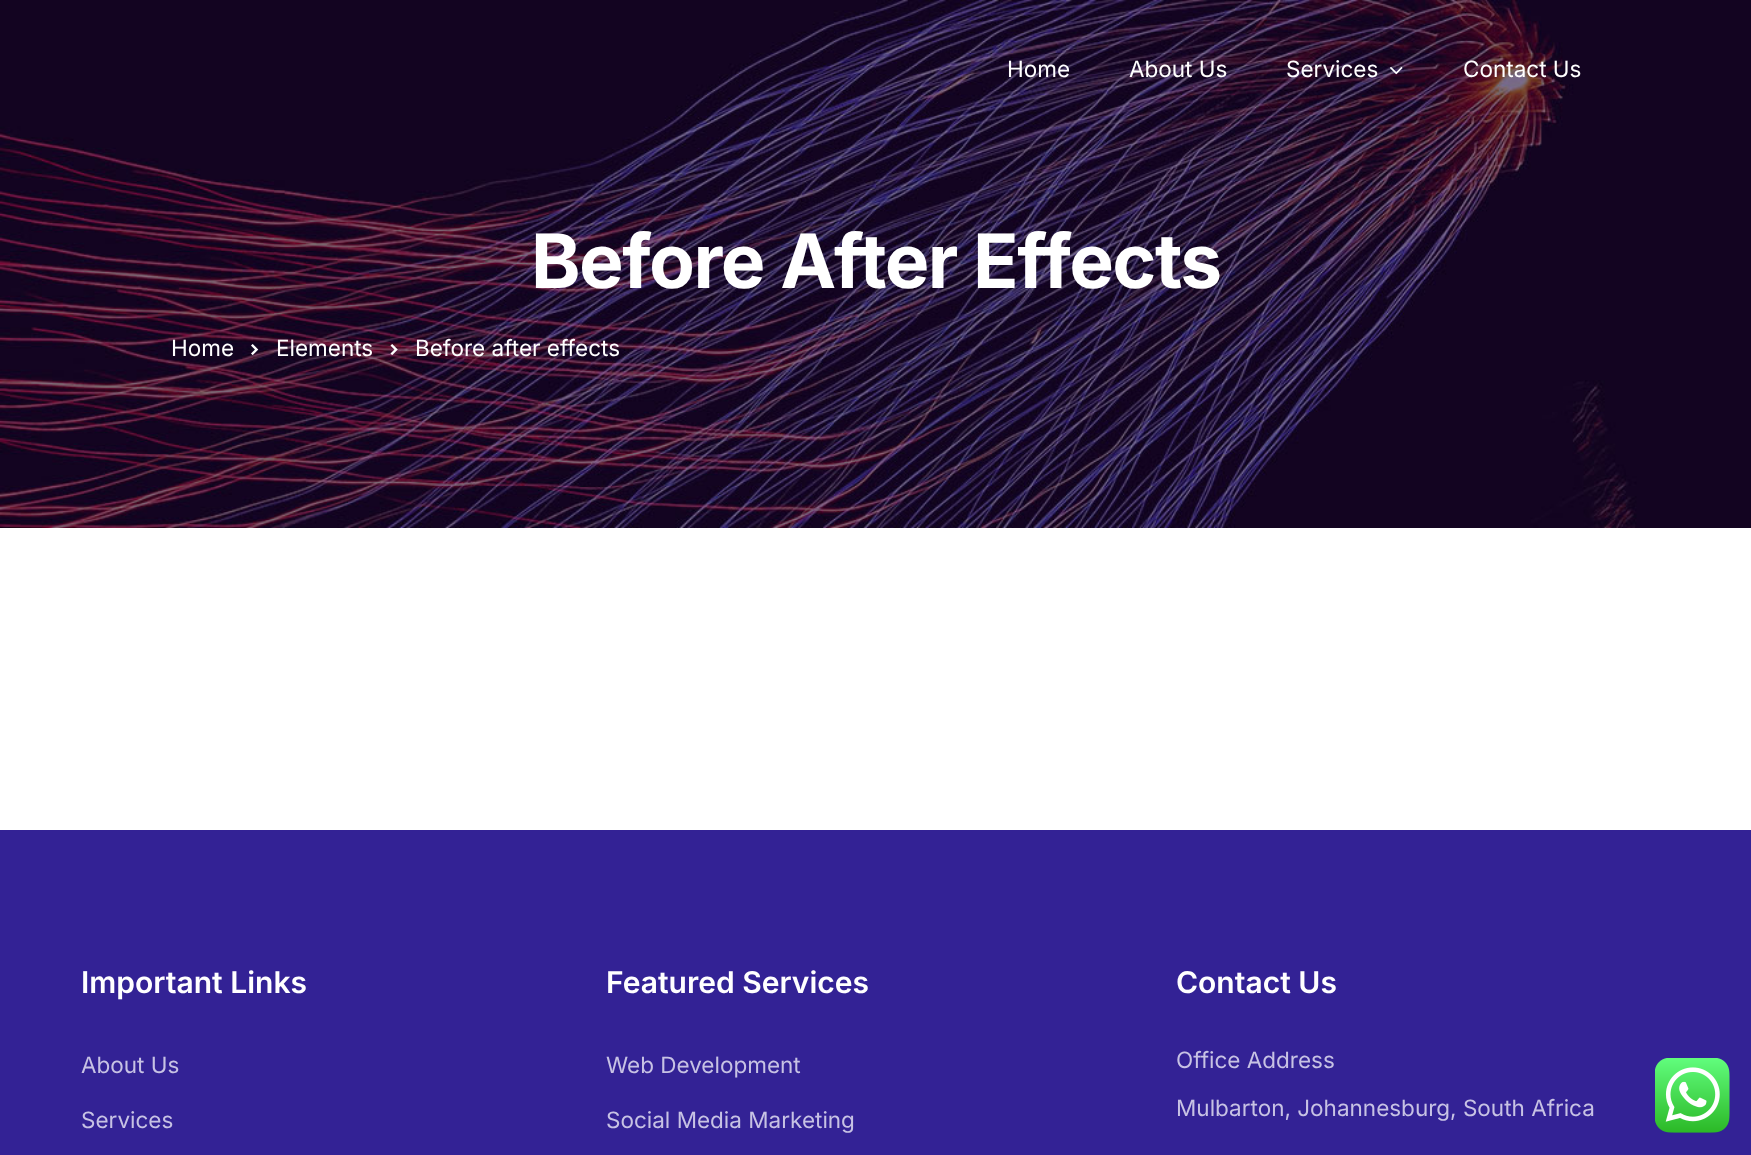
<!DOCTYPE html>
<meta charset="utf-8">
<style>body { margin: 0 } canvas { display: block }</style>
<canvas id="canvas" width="1751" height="1155"></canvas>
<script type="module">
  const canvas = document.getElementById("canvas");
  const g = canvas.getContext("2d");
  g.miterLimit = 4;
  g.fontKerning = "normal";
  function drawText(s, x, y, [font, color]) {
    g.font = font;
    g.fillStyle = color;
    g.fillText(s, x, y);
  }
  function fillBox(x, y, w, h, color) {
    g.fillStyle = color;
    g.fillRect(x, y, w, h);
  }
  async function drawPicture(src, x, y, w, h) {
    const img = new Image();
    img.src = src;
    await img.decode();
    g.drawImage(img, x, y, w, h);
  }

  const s1 = ["22.5px Inter", "#FFFFFF"];
  const s2 = ["bold 75px Inter", "#FFFFFF"];
  const s3 = ["600 30px Inter", "#FFFFFF"];
  const s4 = ["22.5px Inter", "#C7C2E4"];

  fillBox(0, 0, 1751, 1155, "#FFFFFF");
  await drawPicture("pic2.png", 0, 0, 1751, 528);
  drawText("Home", 1007, 77, s1);
  drawText("About Us", 1129, 77, s1);
  drawText("Services", 1286, 77, s1);
  await drawPicture("pic1.png", 1390, 67, 13, 8);
  drawText("Contact Us", 1463, 77, s1);
  g.letterSpacing = "-1.5px";
  drawText("Before After Effects", 531, 288, s2);
  g.letterSpacing = "0px";
  drawText("Home", 171, 356, s1);
  await drawPicture("pic3.png", 251, 344, 8, 12);
  drawText("Elements", 276, 356, s1);
  await drawPicture("pic4.png", 390, 344, 8, 12);
  drawText("Before after effects", 415, 356, s1);
  fillBox(0, 830, 1751, 325, "#332295");
  drawText("Important Links", 81, 993, s3);
  drawText("About Us", 81, 1073, s4);
  drawText("Services", 81, 1128, s4);
  drawText("Featured Services", 606, 993, s3);
  drawText("Web Development", 606, 1073, s4);
  drawText("Social Media Marketing", 606, 1128, s4);
  drawText("Contact Us", 1176, 993, s3);
  drawText("Office Address", 1176, 1068, s4);
  drawText("Mulbarton, Johannesburg, South Africa", 1176, 1116, s4);
  await drawPicture("pic5.png", 1655, 1058, 75, 75);
</script>
